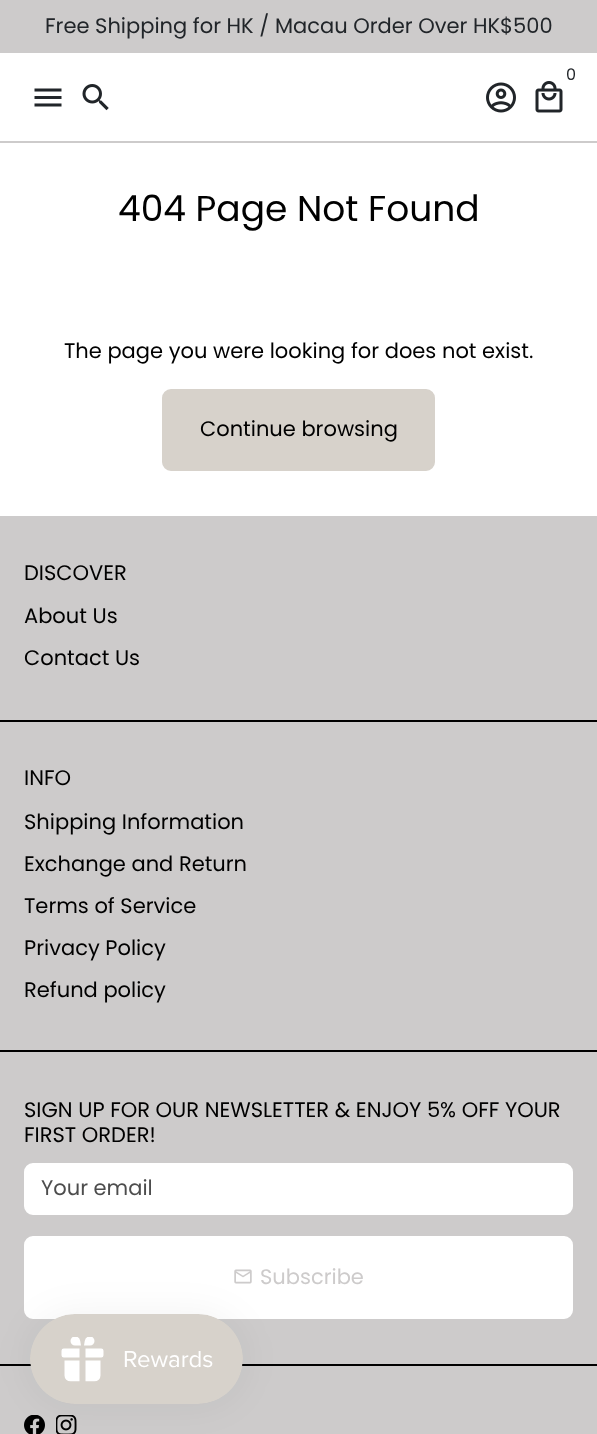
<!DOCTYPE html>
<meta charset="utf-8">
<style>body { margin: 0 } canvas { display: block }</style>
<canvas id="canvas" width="597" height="1434"></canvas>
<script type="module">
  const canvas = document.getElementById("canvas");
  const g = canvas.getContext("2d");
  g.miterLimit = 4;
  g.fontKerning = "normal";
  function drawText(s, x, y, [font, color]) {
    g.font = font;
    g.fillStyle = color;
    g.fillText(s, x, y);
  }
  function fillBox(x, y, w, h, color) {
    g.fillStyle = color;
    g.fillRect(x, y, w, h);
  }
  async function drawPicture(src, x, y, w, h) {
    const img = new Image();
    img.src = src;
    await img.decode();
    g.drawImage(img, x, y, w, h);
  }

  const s1 = ["21px Poppins", "#212529"];
  const s2 = ["16px Poppins", "#212529"];
  const s3 = ["36px Poppins", "#000000"];
  const s4 = ["21px Poppins", "#000000"];
  const s5 = ["21px Poppins", "#4D4D4D"];
  const s6 = ["21px Poppins", "#CDCBCB"];

  fillBox(0, 0, 597, 1434, "#FFFFFF");
  fillBox(0, 0, 597, 53, "#CDCBCB");
  drawText("Free Shipping for HK / Macau Order Over HK$500", 45, 33, s1);
  fillBox(0, 141, 597, 2, "#CDCBCB");
  drawText("0", 566, 80, s2);
  await drawPicture("pic1.png", 535, 81, 28, 32);
  await drawPicture("pic2.png", 486, 82, 30, 31);
  await drawPicture("pic3.png", 34, 88, 28, 19);
  await drawPicture("pic4.png", 82, 84, 27, 27);
  drawText("404 Page Not Found", 118, 221, s3);
  drawText("The page you were looking for does not exist.", 64, 358, s4);
  g.fillStyle = "#D7D2CB";
  g.beginPath();
  g.roundRect(163, 390, 271, 80, 8);
  g.fill();
  g.strokeStyle = "#D7D2CB";
  g.lineWidth = 2;
  g.stroke();
  drawText("Continue browsing", 200, 436, s4);
  fillBox(0, 516, 597, 918, "#CDCBCB");
  drawText("DISCOVER", 24, 580, s4);
  drawText("About Us", 24, 623, s4);
  drawText("Contact Us", 24, 665, s4);
  fillBox(0, 720, 597, 2, "#000000");
  drawText("INFO", 24, 785, s4);
  drawText("Shipping Information", 24, 829, s4);
  drawText("Exchange and Return", 24, 871, s4);
  drawText("Terms of Service", 24, 913, s4);
  drawText("Privacy Policy", 24, 955, s4);
  drawText("Refund policy", 24, 997, s4);
  fillBox(0, 1050, 597, 2, "#000000");
  drawText("SIGN UP FOR OUR NEWSLETTER & ENJOY 5% OFF YOUR", 24, 1117, s4);
  drawText("FIRST ORDER!", 24, 1142, s4);
  g.fillStyle = "#FFFFFF";
  g.beginPath();
  g.roundRect(25, 1164, 547, 50, 8);
  g.fill();
  g.strokeStyle = "#FFFFFF";
  g.stroke();
  drawText("Your email", 41, 1195, s5);
  g.fillStyle = "#FFFFFF";
  g.beginPath();
  g.roundRect(25, 1237, 547, 81, 8);
  g.fill();
  g.stroke();
  await drawPicture("pic5.png", 234, 1269, 18, 15);
  drawText("Subscribe", 260, 1284, s6);
  fillBox(0, 1364, 597, 2, "#000000");
  await drawPicture("pic6.png", 24, 1415, 21, 19);
  await drawPicture("pic7.png", 56, 1415, 21, 19);
  g.fillStyle = "rgba(0, 0, 0, 0.05)";
  g.filter = "blur(19px)";
  g.beginPath();
  g.roundRect(30, 1314, 213, 90, 45);
  g.fill();
  g.filter = "none";
  await drawPicture("pic8.png", 30, 1314, 213, 90);
</script>
